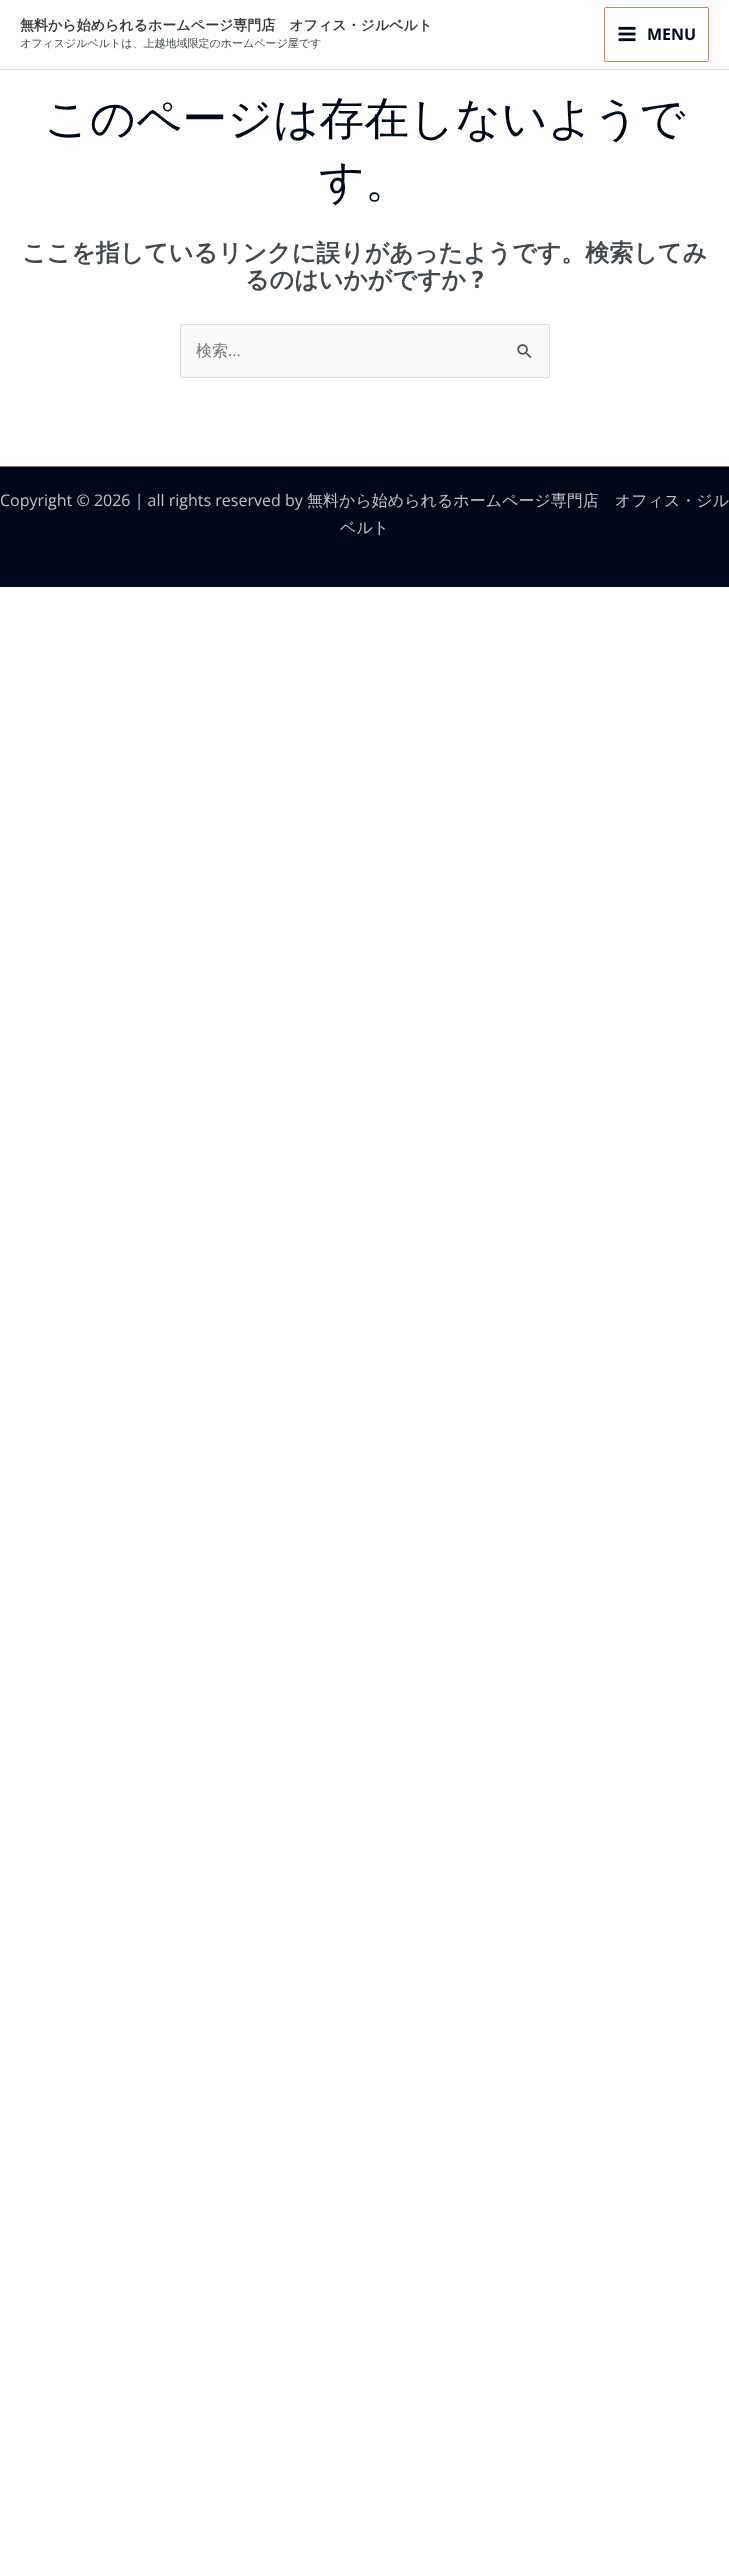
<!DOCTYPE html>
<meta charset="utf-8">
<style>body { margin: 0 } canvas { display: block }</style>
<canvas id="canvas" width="729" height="2559"></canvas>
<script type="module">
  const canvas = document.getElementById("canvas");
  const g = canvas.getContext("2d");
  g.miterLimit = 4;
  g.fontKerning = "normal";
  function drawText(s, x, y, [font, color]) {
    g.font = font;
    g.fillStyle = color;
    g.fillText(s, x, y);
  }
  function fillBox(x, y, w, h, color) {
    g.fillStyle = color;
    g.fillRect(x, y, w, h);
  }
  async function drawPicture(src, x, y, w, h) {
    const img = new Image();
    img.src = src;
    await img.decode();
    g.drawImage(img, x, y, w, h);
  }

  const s1 = ["bold 14px WenQuanYi Zen Hei", "#3A3A3A"];
  const s2 = ["500 11px WenQuanYi Zen Hei", "#42484B"];
  const s3 = ["bold 16px Open Sans", "#000716"];
  const s4 = ["500 45px WenQuanYi Zen Hei", "#000716"];
  const s5 = ["bold 24px WenQuanYi Zen Hei", "#42484B"];
  const s6 = ["bold 24px Open Sans", "#42484B"];
  const s7 = ["500 16px WenQuanYi Zen Hei", "#757575"];
  const s8 = ["16px Open Sans", "#757575"];
  const s9 = ["16px Open Sans", "#BEC4C9"];
  const s10 = ["500 16px WenQuanYi Zen Hei", "#BEC4C9"];

  fillBox(0, 0, 729, 2559, "#FFFFFF");
  fillBox(0, 69, 729, 1, "#DDDDDD");
  drawText("無料から始められるホームページ専門店　オフィス・ジルベルト", 20, 30, s1);
  drawText("オフィスジルベルトは、上越地域限定のホームページ屋です", 20, 47, s2);
  g.beginPath();
  g.roundRect(604.5, 7.5, 104, 54, 1.5);
  g.strokeStyle = "#FF6D4A";
  g.stroke();
  await drawPicture("pic1.png", 618, 26, 18, 16);
  drawText("MENU", 647, 40, s3);
  drawText("このページは存在しないようで", 44, 134, s4);
  drawText("す。", 319, 197, s4);
  drawText("ここを指しているリンクに誤りがあったようです。検索してみ", 22, 261, s5);
  drawText("るのはいかがですか", 245, 288, s5);
  drawText("?", 472, 288, s6);
  g.fillStyle = "#FAFAFA";
  g.beginPath();
  g.roundRect(180.5, 324.5, 369, 53, 1.5);
  g.fill();
  g.strokeStyle = "#DDDDDD";
  g.stroke();
  drawText("検索", 196, 356, s7);
  drawText("...", 228, 356, s8);
  await drawPicture("pic2.png", 517, 344, 15, 15);
  fillBox(0, 467, 729, 120, "#000716");
  fillBox(0, 466, 729, 1, "#7A7A7A");
  drawText("Copyright © 2026 | all rights reserved by", 0, 506, s9);
  drawText("無料から始められるホームページ専門店　オフィス・ジル", 307, 506, s10);
  drawText("ベルト", 340, 533, s10);
</script>
